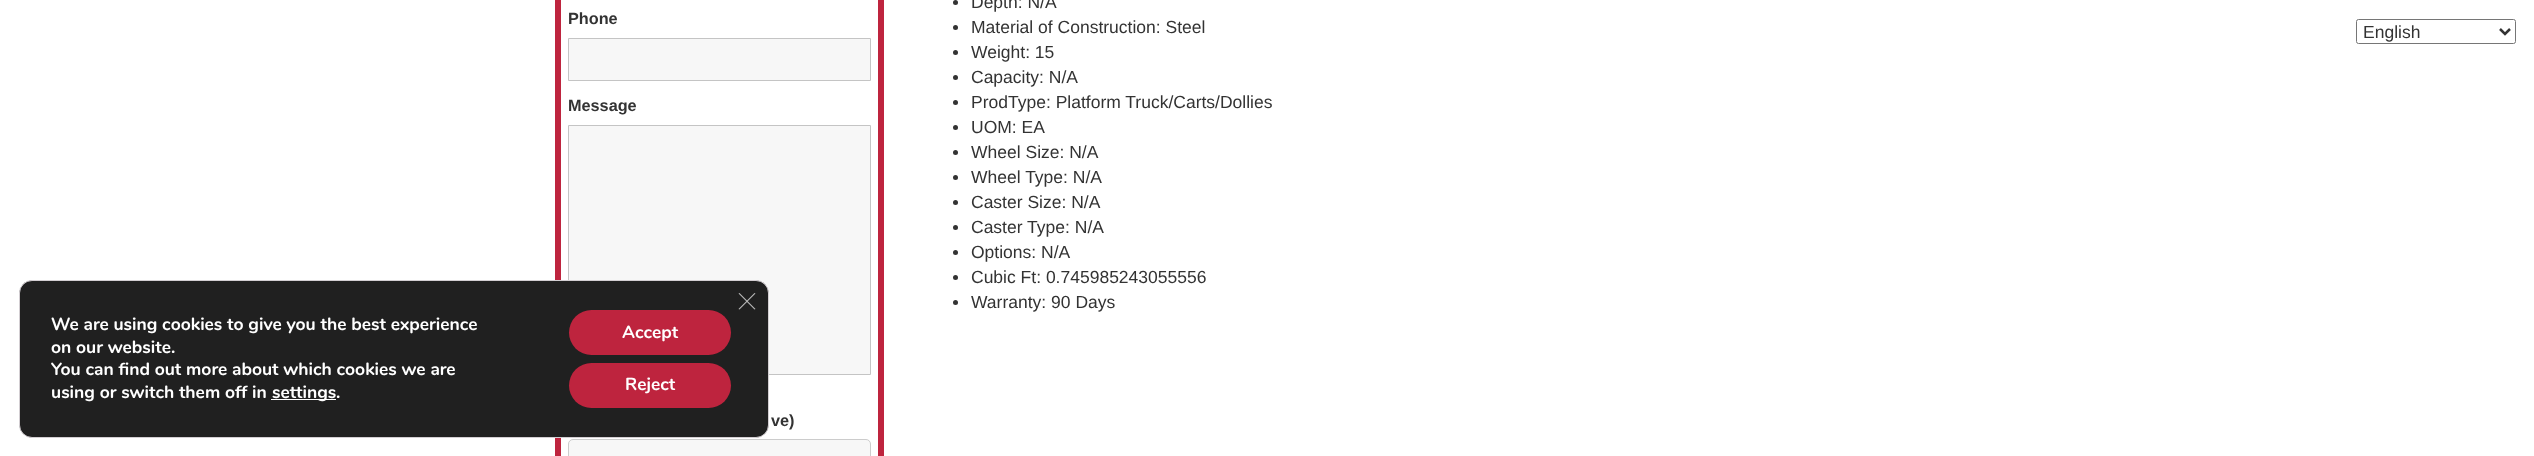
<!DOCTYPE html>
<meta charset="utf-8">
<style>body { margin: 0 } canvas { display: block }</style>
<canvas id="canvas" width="2534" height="456"></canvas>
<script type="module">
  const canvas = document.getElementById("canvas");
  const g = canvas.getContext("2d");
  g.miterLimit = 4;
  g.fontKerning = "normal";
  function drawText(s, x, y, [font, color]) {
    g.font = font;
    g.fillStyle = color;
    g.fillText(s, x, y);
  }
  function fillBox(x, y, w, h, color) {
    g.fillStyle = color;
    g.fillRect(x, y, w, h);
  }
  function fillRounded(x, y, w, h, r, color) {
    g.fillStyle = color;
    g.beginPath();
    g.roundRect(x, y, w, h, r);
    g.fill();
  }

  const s1 = ["bold 16.25px Liberation Sans", "#333333"];
  const s2 = ["17.5px Liberation Sans", "#333333"];
  const s3 = ["bold 17.5px Nunito", "#FFFFFF"];

  fillBox(0, 0, 2534, 456, "#FFFFFF");
  g.strokeStyle = "#BE243E";
  g.lineWidth = 6;
  g.strokeRect(558, -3, 323, 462);
  drawText("Phone", 568, 24, s1);
  g.fillStyle = "#F7F7F7";
  g.beginPath();
  g.rect(568.5, 38.5, 302, 42);
  g.fill();
  g.strokeStyle = "#C4C4C4";
  g.lineWidth = 1;
  g.stroke();
  drawText("Message", 568, 111, s1);
  g.fillStyle = "#F7F7F7";
  g.beginPath();
  g.rect(568.5, 125.5, 302, 249);
  g.fill();
  g.stroke();
  drawText("ve)", 771, 426, s1);
  g.fillStyle = "#F7F7F7";
  g.beginPath();
  g.roundRect(568.5, 439.5, 302, 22, 4.5);
  g.fill();
  g.strokeStyle = "#CCCCCC";
  g.stroke();
  g.fillStyle = "#333333";
  g.beginPath();
  g.arc(955.5, 2.5, 2.5, 0, Math.PI * 2);
  g.fill();
  drawText("Depth: N/A", 971, 8, s2);
  g.beginPath();
  g.arc(955.5, 27.5, 2.5, 0, Math.PI * 2);
  g.fill();
  drawText("Material of Construction: Steel", 971, 33, s2);
  g.beginPath();
  g.arc(955.5, 52.5, 2.5, 0, Math.PI * 2);
  g.fill();
  drawText("Weight: 15", 971, 58, s2);
  g.beginPath();
  g.arc(955.5, 77.5, 2.5, 0, Math.PI * 2);
  g.fill();
  drawText("Capacity: N/A", 971, 83, s2);
  g.beginPath();
  g.arc(955.5, 102.5, 2.5, 0, Math.PI * 2);
  g.fill();
  drawText("ProdType: Platform Truck/Carts/Dollies", 971, 108, s2);
  g.beginPath();
  g.arc(955.5, 127.5, 2.5, 0, Math.PI * 2);
  g.fill();
  drawText("UOM: EA", 971, 133, s2);
  g.beginPath();
  g.arc(955.5, 152.5, 2.5, 0, Math.PI * 2);
  g.fill();
  drawText("Wheel Size: N/A", 971, 158, s2);
  g.beginPath();
  g.arc(955.5, 177.5, 2.5, 0, Math.PI * 2);
  g.fill();
  drawText("Wheel Type: N/A", 971, 183, s2);
  g.beginPath();
  g.arc(955.5, 202.5, 2.5, 0, Math.PI * 2);
  g.fill();
  drawText("Caster Size: N/A", 971, 208, s2);
  g.beginPath();
  g.arc(955.5, 227.5, 2.5, 0, Math.PI * 2);
  g.fill();
  drawText("Caster Type: N/A", 971, 233, s2);
  g.beginPath();
  g.arc(955.5, 252.5, 2.5, 0, Math.PI * 2);
  g.fill();
  drawText("Options: N/A", 971, 258, s2);
  g.beginPath();
  g.arc(955.5, 277.5, 2.5, 0, Math.PI * 2);
  g.fill();
  drawText("Cubic Ft: 0.745985243055556", 971, 283, s2);
  g.beginPath();
  g.arc(955.5, 302.5, 2.5, 0, Math.PI * 2);
  g.fill();
  drawText("Warranty: 90 Days", 971, 308, s2);
  g.beginPath();
  g.roundRect(2356.5, 19.5, 159, 24, 2);
  g.strokeStyle = "#767676";
  g.stroke();
  g.beginPath();
  g.moveTo(2500, 29);
  g.lineTo(2505, 34);
  g.lineTo(2510, 29);
  g.strokeStyle = "#333333";
  g.lineWidth = 2.5;
  g.stroke();
  drawText("English", 2363, 38, s2);
  g.fillStyle = "#202020";
  g.beginPath();
  g.roundRect(19.5, 280.5, 749, 157, 12.5);
  g.fill();
  g.strokeStyle = "#D3CED2";
  g.lineWidth = 1;
  g.stroke();
  drawText("We are using cookies to give you the best experience", 51, 330, s3);
  drawText("on our website.", 51, 353, s3);
  drawText("You can find out more about which cookies we are", 51, 375, s3);
  drawText("using or switch them off in", 51, 398, s3);
  fillBox(271, 399, 65, 1, "#FFFFFF");
  drawText("settings.", 272, 398, s3);
  g.fillStyle = "#BCBCBC";
  g.beginPath();
  g.moveTo(754.5, 293);
  g.lineTo(755.5, 293.5);
  g.lineTo(739.5, 309.5);
  g.lineTo(738.5, 309);
  g.closePath();
  g.fill();
  g.beginPath();
  g.moveTo(738.5, 293.5);
  g.lineTo(739.5, 293);
  g.lineTo(755.5, 309);
  g.lineTo(754.5, 309.5);
  g.closePath();
  g.fill();
  fillRounded(569, 310, 162, 45, 22.5, "#BE243E");
  drawText("Accept", 622, 338, s3);
  fillRounded(569, 363, 162, 45, 22.5, "#BE243E");
  drawText("Reject", 625, 390, s3);
</script>
